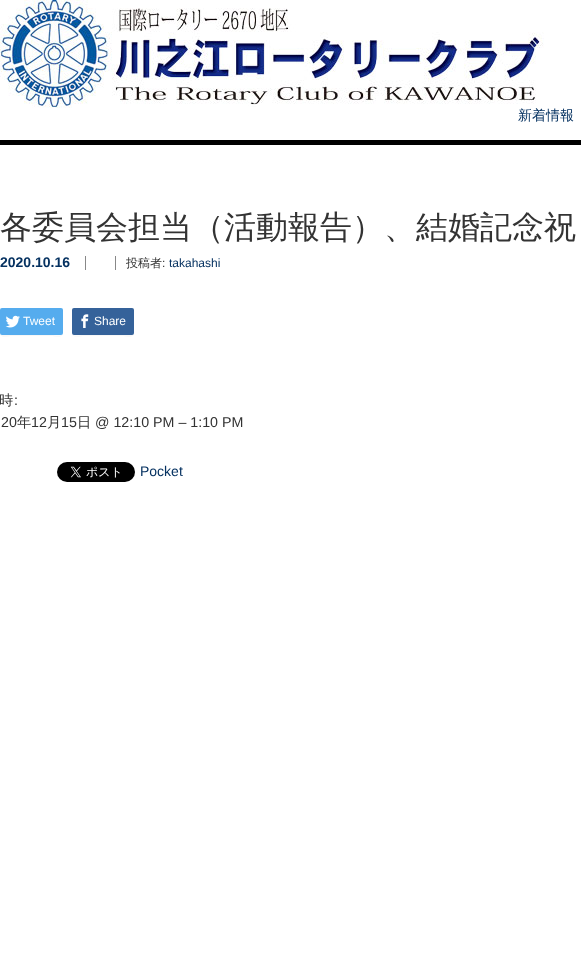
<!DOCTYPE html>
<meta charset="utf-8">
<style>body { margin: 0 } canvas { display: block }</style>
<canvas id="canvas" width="581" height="977"></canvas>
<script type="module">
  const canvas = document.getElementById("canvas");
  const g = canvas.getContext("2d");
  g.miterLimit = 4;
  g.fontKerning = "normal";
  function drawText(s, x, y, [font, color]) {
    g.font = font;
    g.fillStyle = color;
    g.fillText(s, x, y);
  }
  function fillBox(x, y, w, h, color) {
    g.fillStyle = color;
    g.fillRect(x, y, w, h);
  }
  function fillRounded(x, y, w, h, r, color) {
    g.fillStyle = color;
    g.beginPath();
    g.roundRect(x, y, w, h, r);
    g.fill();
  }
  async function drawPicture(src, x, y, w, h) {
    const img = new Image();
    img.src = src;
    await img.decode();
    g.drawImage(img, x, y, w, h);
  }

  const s1 = ["500 14px WenQuanYi Zen Hei", "#063261"];
  const s2 = ["500 32px WenQuanYi Zen Hei", "#333333"];
  const s3 = ["bold 14px Liberation Sans", "#063261"];
  const s4 = ["500 12px WenQuanYi Zen Hei", "#333333"];
  const s5 = ["12px Liberation Sans", "#333333"];
  const s6 = ["12px Liberation Sans", "#063261"];
  const s7 = ["12px Liberation Sans", "#FFFFFF"];
  const s8 = ["500 14.25px WenQuanYi Zen Hei", "#333333"];
  const s9 = ["14.25px Liberation Sans", "#333333"];
  const s10 = ["14px Liberation Sans", "#063261"];

  fillBox(0, 0, 581, 977, "#FFFFFF");
  fillBox(0, 140, 581, 5, "#000000");
  await drawPicture("pic1.png", 0, 0, 544, 108);
  drawText("新着情報", 518, 120, s1);
  drawText("各委員会担当（活動報告）、結婚記念祝", 0, 238, s2);
  drawText("2020.10.16", 0, 267, s3);
  fillBox(85, 256, 1, 14, "#888888");
  fillBox(115, 256, 1, 14, "#888888");
  drawText("投稿者", 126, 267, s4);
  drawText(":", 162, 267, s5);
  drawText("takahashi", 169, 267, s6);
  g.fillStyle = "#F7F7F7";
  g.beginPath();
  g.moveTo(0, 333);
  g.bezierCurveTo(0, 339, 8, 336, 12, 336);
  g.lineTo(51, 336);
  g.bezierCurveTo(55, 336, 63, 339, 63, 333);
  g.bezierCurveTo(63, 337, 55, 335, 51, 335);
  g.lineTo(1, 335);
  g.closePath();
  g.fill();
  fillRounded(0, 308, 63, 27, 2, "#55ACEE");
  await drawPicture("pic2.png", 5, 315, 15, 13);
  drawText("Tweet", 23, 325, s7);
  g.fillStyle = "#F7F7F7";
  g.beginPath();
  g.moveTo(72, 333);
  g.bezierCurveTo(72, 339, 80, 336, 84, 336);
  g.lineTo(122, 336);
  g.bezierCurveTo(126, 336, 134, 339, 134, 333);
  g.lineTo(133, 335);
  g.lineTo(84, 335);
  g.bezierCurveTo(80, 335, 72, 337, 72, 333);
  g.closePath();
  g.fill();
  fillRounded(72, 308, 62, 27, 2, "#35629A");
  await drawPicture("pic3.png", 81, 314, 8, 14);
  drawText("Share", 94, 325, s7);
  drawText("時", -1, 405, s8);
  drawText(":", 14, 405, s9);
  drawText("20", 1, 427, s9);
  drawText("年", 17, 427, s8);
  drawText("12", 31, 427, s9);
  drawText("月", 47, 427, s8);
  drawText("15", 61, 427, s9);
  drawText("日", 77, 427, s8);
  drawText("@ 12:10 PM – 1:10 PM", 95, 427, s9);
  await drawPicture("pic4.png", 57, 462, 78, 20);
  drawText("Pocket", 140, 476, s10);
</script>
